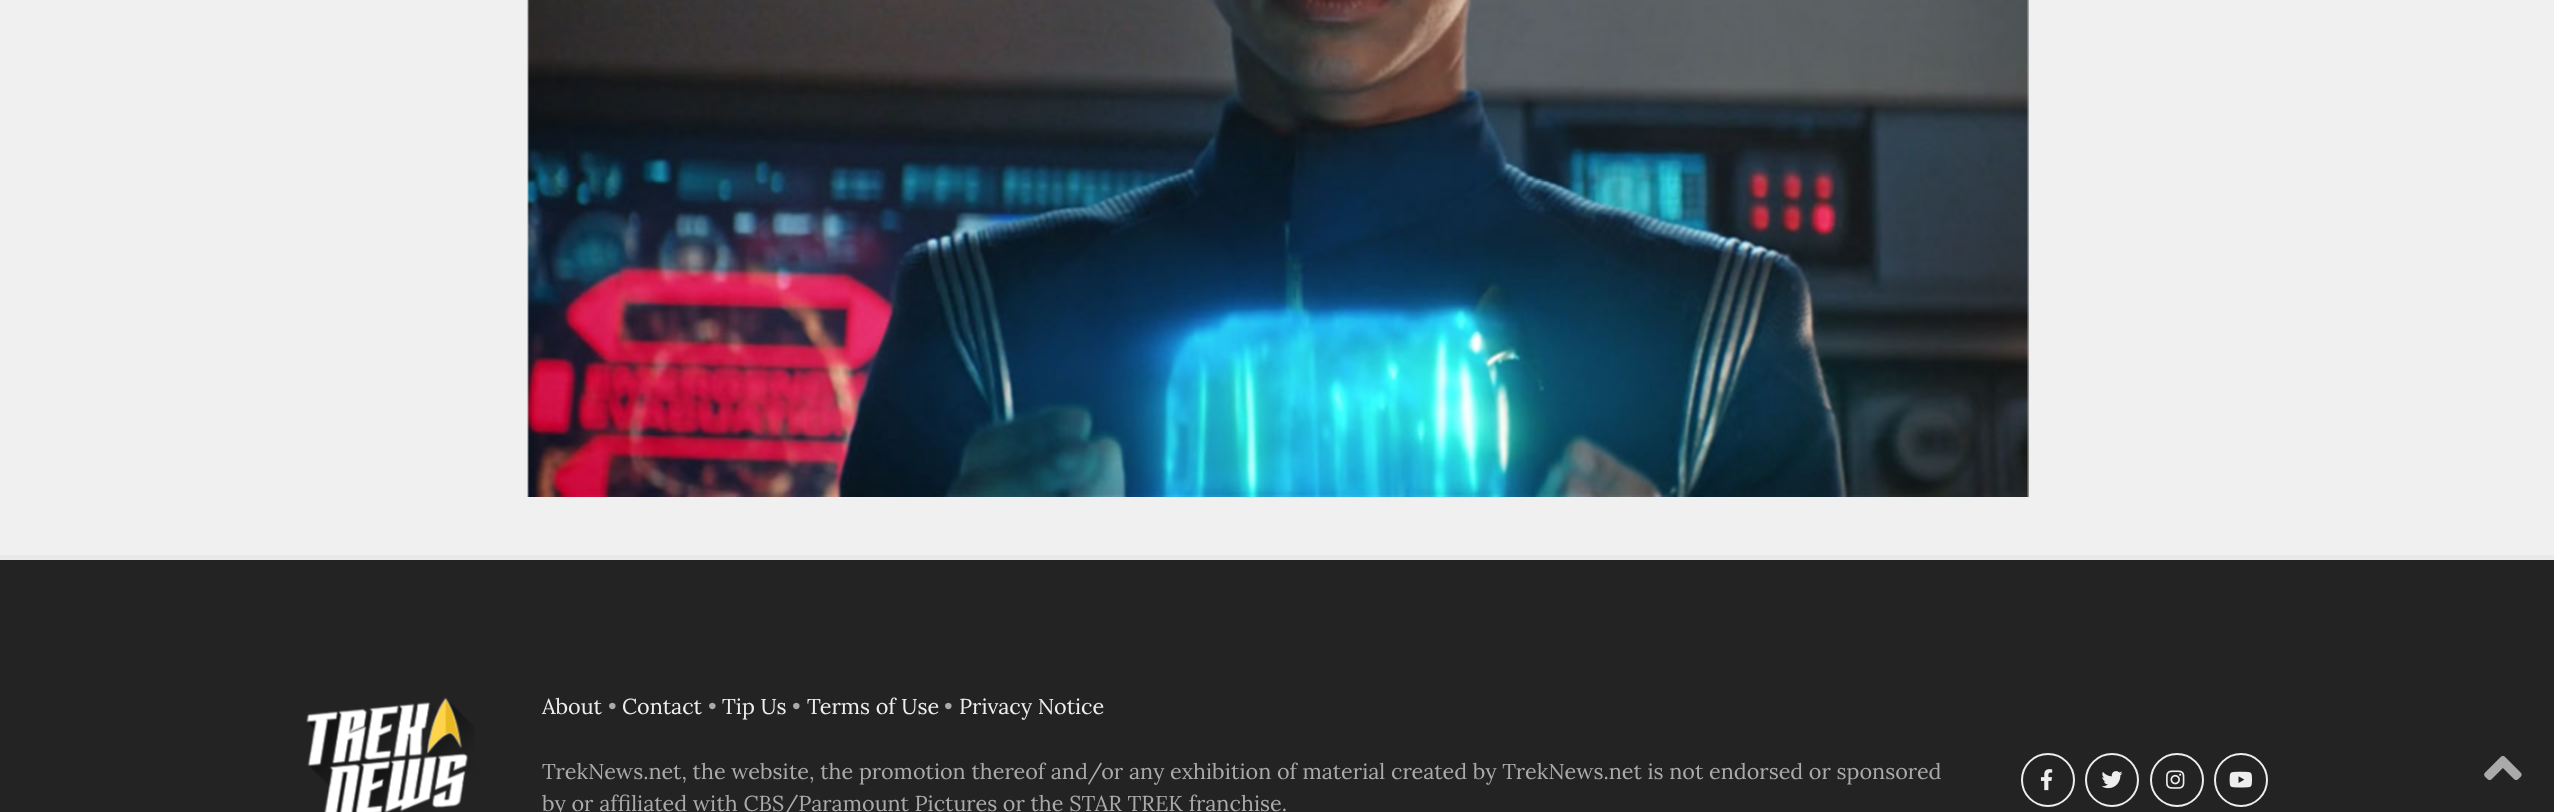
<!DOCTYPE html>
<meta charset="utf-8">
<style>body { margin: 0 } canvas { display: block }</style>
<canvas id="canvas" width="2554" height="812"></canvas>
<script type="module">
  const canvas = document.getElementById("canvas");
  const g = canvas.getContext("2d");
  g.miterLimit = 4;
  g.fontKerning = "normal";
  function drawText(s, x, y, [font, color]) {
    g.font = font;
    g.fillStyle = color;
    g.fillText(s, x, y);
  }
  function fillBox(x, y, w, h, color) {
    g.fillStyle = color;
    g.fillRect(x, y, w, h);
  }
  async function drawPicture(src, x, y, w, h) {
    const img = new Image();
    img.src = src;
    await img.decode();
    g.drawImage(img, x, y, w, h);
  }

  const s1 = ["21.6px Lora", "#EEEEEE"];
  const s2 = ["21.6px Lora", "#AAAAAA"];

  fillBox(0, 0, 2554, 812, "#F0F0F0");
  await drawPicture("pic1.png", 527, 0, 1502, 497);
  fillBox(0, 560, 2554, 252, "#232323");
  fillBox(0, 555, 2554, 5, "#E9E9E9");
  await drawPicture("pic2.png", 306, 697, 169, 115);
  drawText("About", 542, 714, s1);
  drawText("•", 608, 714, s2);
  drawText("Contact", 622, 714, s1);
  drawText("•", 708, 714, s2);
  drawText("Tip Us", 722, 714, s1);
  drawText("•", 792, 714, s2);
  drawText("Terms of Use", 807, 714, s1);
  drawText("•", 944, 714, s2);
  drawText("Privacy Notice", 959, 714, s1);
  drawText("TrekNews.net, the website, the promotion thereof and/or any exhibition of material created by TrekNews.net is not endorsed or sponsored", 542, 779, s2);
  drawText("by or affiliated with CBS/Paramount Pictures or the STAR TREK franchise.", 542, 811, s2);
  g.beginPath();
  g.arc(2048, 780, 26, 0, Math.PI * 2);
  g.strokeStyle = "#EEEEEE";
  g.lineWidth = 2;
  g.stroke();
  await drawPicture("pic3.png", 2040, 769, 13, 22);
  g.beginPath();
  g.arc(2112, 780, 26, 0, Math.PI * 2);
  g.stroke();
  await drawPicture("pic4.png", 2101, 771, 22, 18);
  g.beginPath();
  g.arc(2177, 780, 26, 0, Math.PI * 2);
  g.stroke();
  await drawPicture("pic5.png", 2166, 770, 19, 19);
  g.beginPath();
  g.arc(2241, 780, 26, 0, Math.PI * 2);
  g.stroke();
  await drawPicture("pic6.png", 2229, 771, 23, 17);
  await drawPicture("pic7.png", 2484, 756, 38, 24);
</script>
